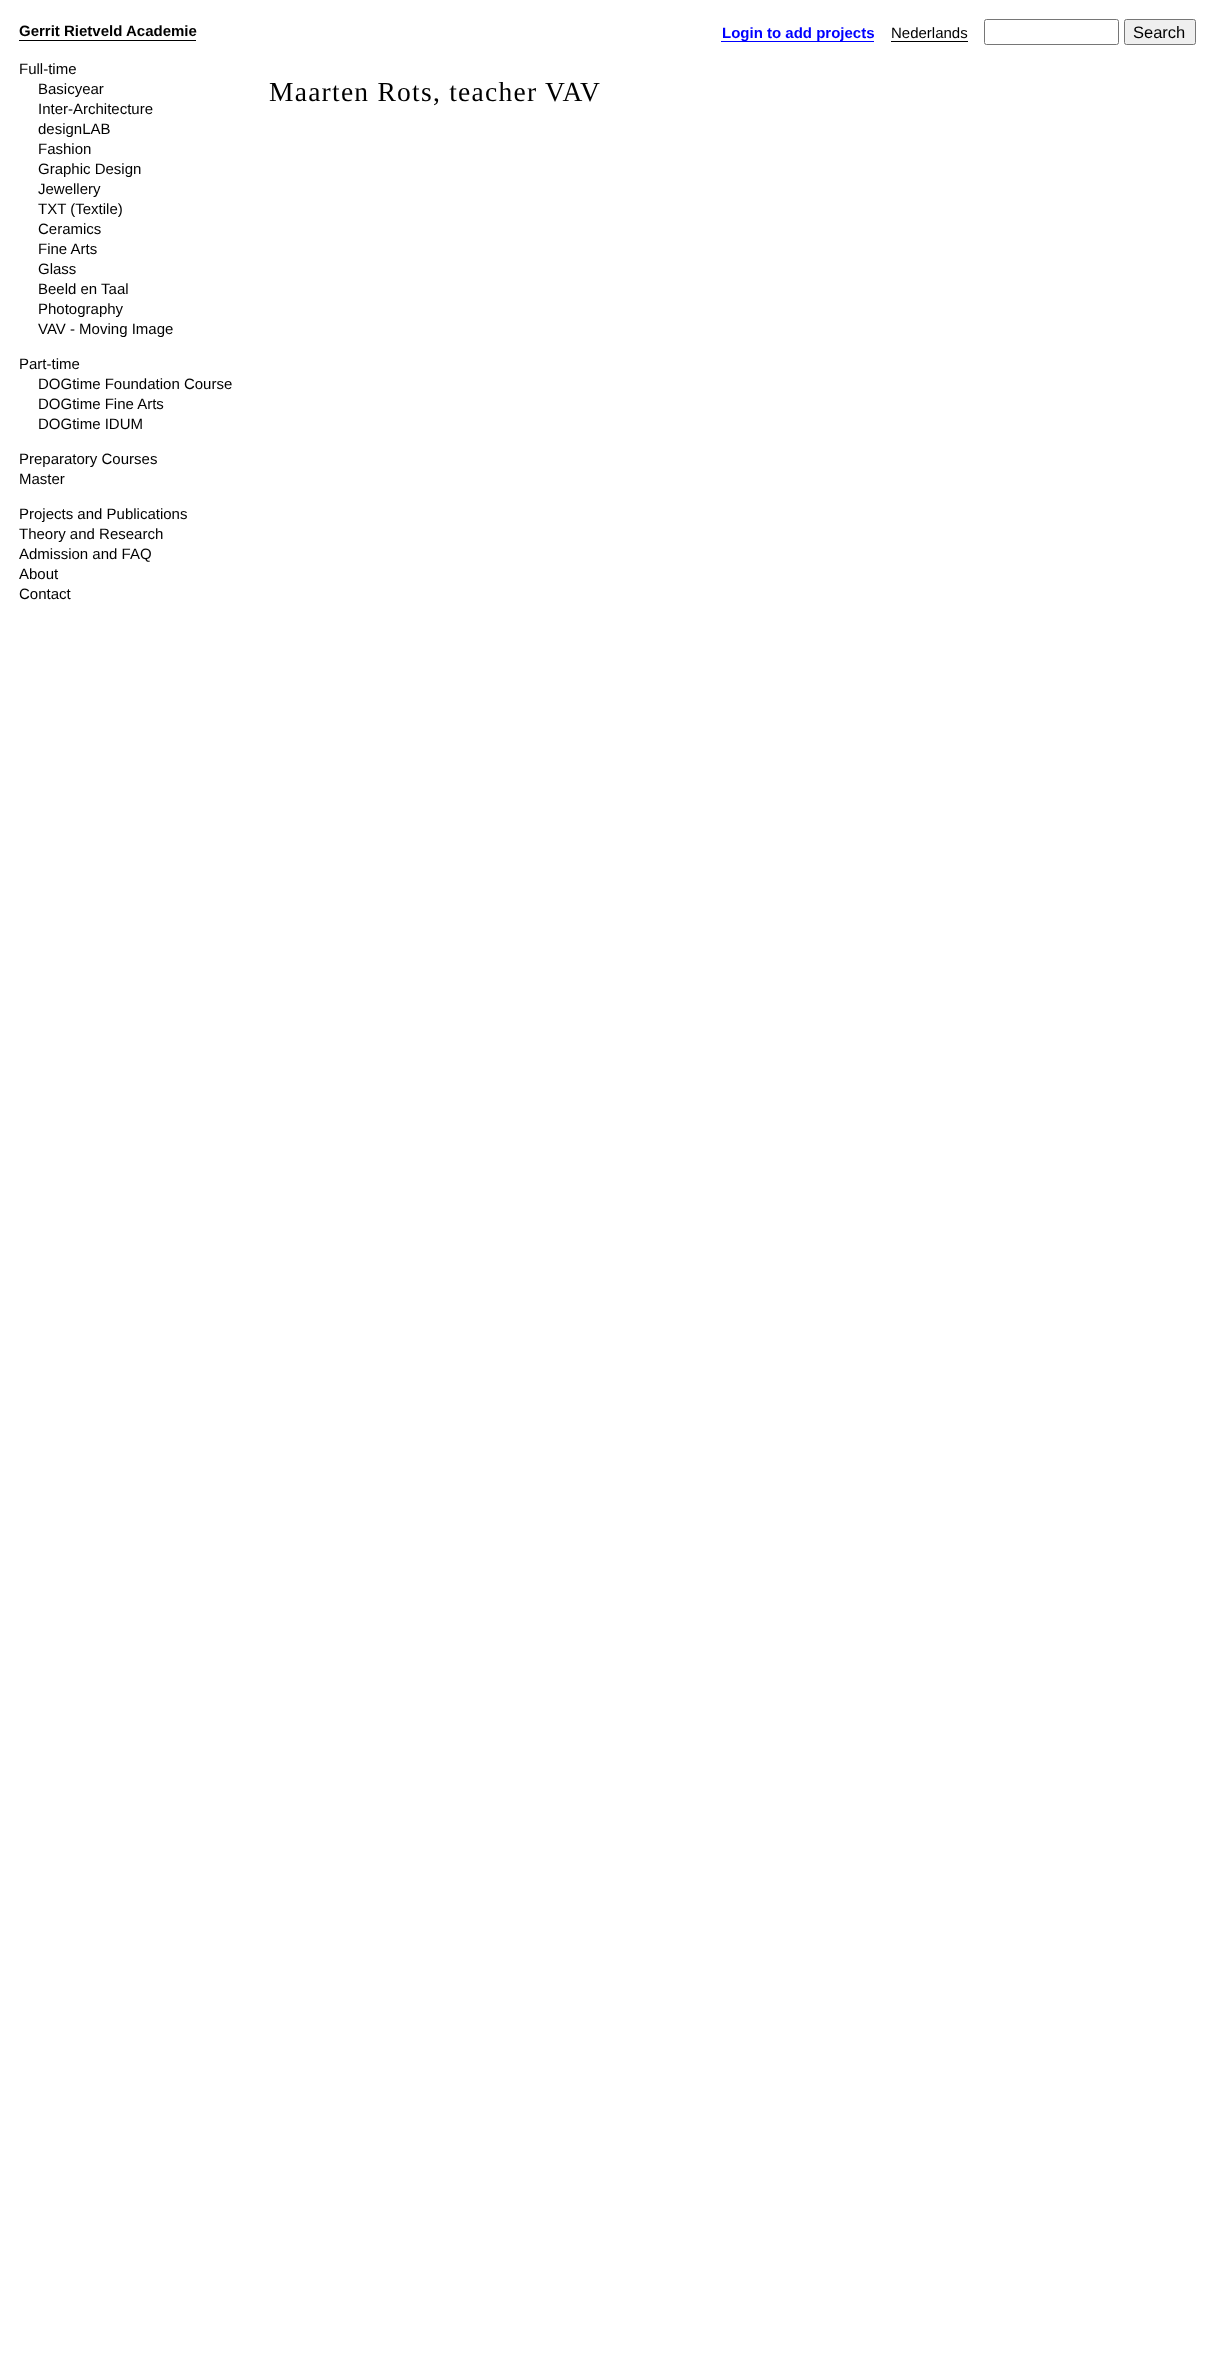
<!DOCTYPE html>
<meta charset="utf-8">
<style>body { margin: 0 } canvas { display: block }</style>
<canvas id="canvas" width="1221" height="2371"></canvas>
<script type="module">
  const canvas = document.getElementById("canvas");
  const g = canvas.getContext("2d");
  g.miterLimit = 4;
  g.fontKerning = "normal";
  function drawText(s, x, y, [font, color]) {
    g.font = font;
    g.fillStyle = color;
    g.fillText(s, x, y);
  }
  function fillBox(x, y, w, h, color) {
    g.fillStyle = color;
    g.fillRect(x, y, w, h);
  }

  const s1 = ["bold 15px Liberation Sans", "#000000"];
  const s2 = ["15px Liberation Sans", "#000000"];
  const s3 = ["bold 15px Liberation Sans", "#0000FF"];
  const s4 = ["16.5px Liberation Sans", "#000000"];
  const s5 = ["27.5px Liberation Serif", "#000000"];

  fillBox(0, 0, 1221, 2371, "#FFFFFF");
  drawText("Gerrit Rietveld Academie", 19, 36, s1);
  fillBox(19, 40, 177, 1, "#000000");
  drawText("Full-time", 19, 74, s2);
  drawText("Basicyear", 38, 94, s2);
  drawText("Inter-Architecture", 38, 114, s2);
  drawText("designLAB", 38, 134, s2);
  drawText("Fashion", 38, 154, s2);
  drawText("Graphic Design", 38, 174, s2);
  drawText("Jewellery", 38, 194, s2);
  drawText("TXT (Textile)", 38, 214, s2);
  drawText("Ceramics", 38, 234, s2);
  drawText("Fine Arts", 38, 254, s2);
  drawText("Glass", 38, 274, s2);
  drawText("Beeld en Taal", 38, 294, s2);
  drawText("Photography", 38, 314, s2);
  drawText("VAV - Moving Image", 38, 334, s2);
  drawText("Part-time", 19, 369, s2);
  drawText("DOGtime Foundation Course", 38, 389, s2);
  drawText("DOGtime Fine Arts", 38, 409, s2);
  drawText("DOGtime IDUM", 38, 429, s2);
  drawText("Preparatory Courses", 19, 464, s2);
  drawText("Master", 19, 484, s2);
  drawText("Projects and Publications", 19, 519, s2);
  drawText("Theory and Research", 19, 539, s2);
  drawText("Admission and FAQ", 19, 559, s2);
  drawText("About", 19, 579, s2);
  drawText("Contact", 19, 599, s2);
  fillBox(721, 41, 153, 1, "#0000FF");
  drawText("Login to add projects", 722, 38, s3);
  drawText("Nederlands", 891, 38, s2);
  fillBox(891, 41, 77, 1, "#000000");
  g.beginPath();
  g.roundRect(984.5, 19.5, 134, 25, 2);
  g.strokeStyle = "#767676";
  g.stroke();
  g.fillStyle = "#EFEFEF";
  g.beginPath();
  g.roundRect(1124.5, 19.5, 71, 25, 2);
  g.fill();
  g.stroke();
  drawText("Search", 1133, 38, s4);
  g.letterSpacing = "1.25px";
  drawText("Maarten Rots, teacher VAV", 269, 101, s5);
</script>
